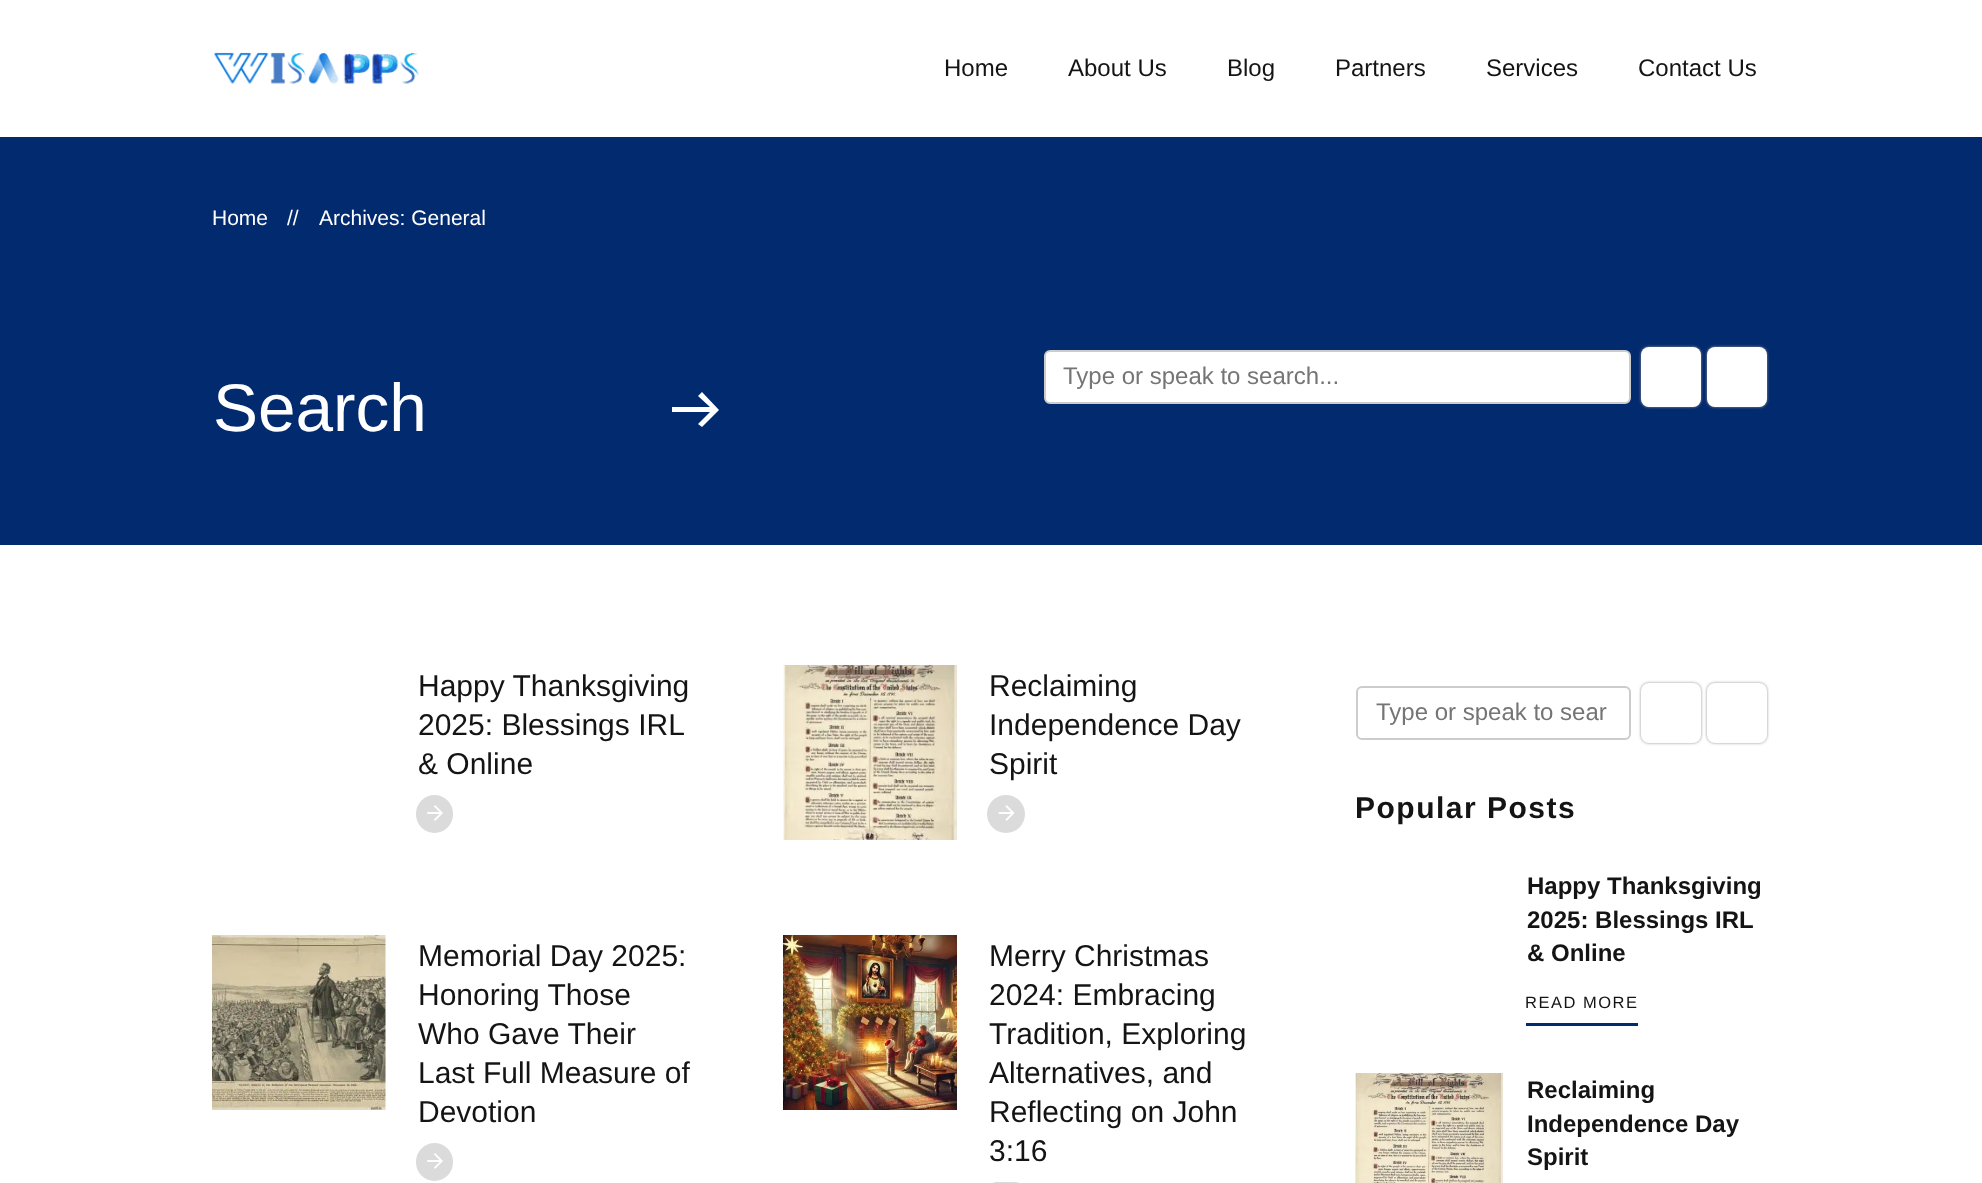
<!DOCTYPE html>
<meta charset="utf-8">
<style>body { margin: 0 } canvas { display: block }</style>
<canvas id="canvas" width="1982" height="1183"></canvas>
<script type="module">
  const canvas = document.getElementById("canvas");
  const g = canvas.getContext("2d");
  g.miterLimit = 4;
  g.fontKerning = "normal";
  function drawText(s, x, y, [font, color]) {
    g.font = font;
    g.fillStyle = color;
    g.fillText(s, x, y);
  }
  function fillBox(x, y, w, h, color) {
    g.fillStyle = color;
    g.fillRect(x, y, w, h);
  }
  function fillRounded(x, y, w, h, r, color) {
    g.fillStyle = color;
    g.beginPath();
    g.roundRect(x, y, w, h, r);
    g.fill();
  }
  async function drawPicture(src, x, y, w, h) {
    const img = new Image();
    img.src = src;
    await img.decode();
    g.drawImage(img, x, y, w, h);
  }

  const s1 = ["24px Liberation Sans", "#141414"];
  const s2 = ["21px Liberation Sans", "#FFFFFF"];
  const s3 = ["24px Liberation Sans", "#757575"];
  const s4 = ["67.5px Liberation Sans", "#FFFFFF"];
  const s5 = ["30px Liberation Sans", "#141414"];
  const s6 = ["bold 30px Liberation Sans", "#141414"];
  const s7 = ["bold 24px Liberation Sans", "#141414"];
  const s8 = ["16.5px Liberation Sans", "#141414"];

  fillBox(0, 0, 1982, 1183, "#FFFFFF");
  await drawPicture("pic1.png", 213, 52, 206, 32);
  drawText("Home", 944, 76, s1);
  drawText("About Us", 1068, 76, s1);
  drawText("Blog", 1227, 76, s1);
  drawText("Partners", 1335, 76, s1);
  drawText("Services", 1486, 76, s1);
  drawText("Contact Us", 1638, 76, s1);
  fillBox(0, 137, 1982, 408, "#022A6F");
  drawText("Home", 212, 225, s2);
  drawText("//", 287, 225, s2);
  drawText("Archives: General", 319, 225, s2);
  g.beginPath();
  g.roundRect(1045, 351, 585, 52, 5);
  g.fill();
  g.strokeStyle = "#CCCCCC";
  g.lineWidth = 2;
  g.stroke();
  drawText("Type or speak to search...", 1063, 384, s3);
  g.fillStyle = "#979393";
  g.filter = "blur(1.5px)";
  g.beginPath();
  g.roundRect(1641, 347, 60, 60, 8);
  g.fill();
  g.filter = "none";
  fillRounded(1641, 347, 60, 60, 8, "#FFFFFF");
  g.fillStyle = "#979393";
  g.filter = "blur(1.5px)";
  g.beginPath();
  g.roundRect(1707, 347, 60, 60, 8);
  g.fill();
  g.filter = "none";
  fillRounded(1707, 347, 60, 60, 8, "#FFFFFF");
  drawText("Search", 213, 431, s4);
  g.beginPath();
  g.moveTo(672, 412);
  g.lineTo(672, 407);
  g.lineTo(710, 407);
  g.lineTo(698, 396);
  g.lineTo(702, 392);
  g.lineTo(719, 410);
  g.lineTo(702, 427);
  g.lineTo(698, 424);
  g.lineTo(710, 412);
  g.closePath();
  g.fill();
  drawText("Happy Thanksgiving", 418, 696, s5);
  drawText("2025: Blessings IRL", 418, 735, s5);
  drawText("& Online", 418, 774, s5);
  fillRounded(416, 795, 37, 38, 18.5, "#DBDBDB");
  await drawPicture("pic2.png", 427, 805, 16, 16);
  await drawPicture("pic3.png", 783, 665, 174, 175);
  drawText("Reclaiming", 989, 696, s5);
  drawText("Independence Day", 989, 735, s5);
  drawText("Spirit", 989, 774, s5);
  g.fillStyle = "#DBDBDB";
  g.beginPath();
  g.arc(1006, 814, 19, 0, Math.PI * 2);
  g.fill();
  await drawPicture("pic4.png", 998, 805, 17, 16);
  await drawPicture("pic5.png", 212, 935, 174, 175);
  drawText("Memorial Day 2025:", 418, 966, s5);
  drawText("Honoring Those", 418, 1005, s5);
  drawText("Who Gave Their", 418, 1044, s5);
  drawText("Last Full Measure of", 418, 1083, s5);
  drawText("Devotion", 418, 1122, s5);
  fillRounded(416, 1143, 37, 38, 18.5, "#DBDBDB");
  await drawPicture("pic2.png", 427, 1153, 16, 16);
  await drawPicture("pic6.png", 783, 935, 174, 175);
  drawText("Merry Christmas", 989, 966, s5);
  drawText("2024: Embracing", 989, 1005, s5);
  drawText("Tradition, Exploring", 989, 1044, s5);
  drawText("Alternatives, and", 989, 1083, s5);
  drawText("Reflecting on John", 989, 1122, s5);
  drawText("3:16", 989, 1161, s5);
  fillRounded(987, 1182, 38, 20, 19, "#DBDBDB");
  g.beginPath();
  g.roundRect(1357, 687, 273, 52, 5);
  g.stroke();
  drawText("Type or speak to sear", 1376, 720, s3);
  g.fillStyle = "#979393";
  g.filter = "blur(1.5px)";
  g.beginPath();
  g.roundRect(1641, 683, 60, 60, 8);
  g.fill();
  g.filter = "none";
  fillRounded(1641, 683, 60, 60, 8, "#FFFFFF");
  g.fillStyle = "#979393";
  g.filter = "blur(1.5px)";
  g.beginPath();
  g.roundRect(1707, 683, 60, 60, 8);
  g.fill();
  g.filter = "none";
  fillRounded(1707, 683, 60, 60, 8, "#FFFFFF");
  g.letterSpacing = "1.5px";
  drawText("Popular Posts", 1355, 818, s6);
  g.letterSpacing = "0px";
  drawText("Happy Thanksgiving", 1527, 894, s7);
  drawText("2025: Blessings IRL", 1527, 928, s7);
  drawText("& Online", 1527, 961, s7);
  fillBox(1526, 1023, 112, 3, "#022A6F");
  g.letterSpacing = "1.5px";
  drawText("READ MORE", 1525, 1008, s8);
  await drawPicture("pic7.png", 1355, 1073, 148, 110);
  g.letterSpacing = "0px";
  drawText("Reclaiming", 1527, 1098, s7);
  drawText("Independence Day", 1527, 1132, s7);
  drawText("Spirit", 1527, 1165, s7);
</script>
